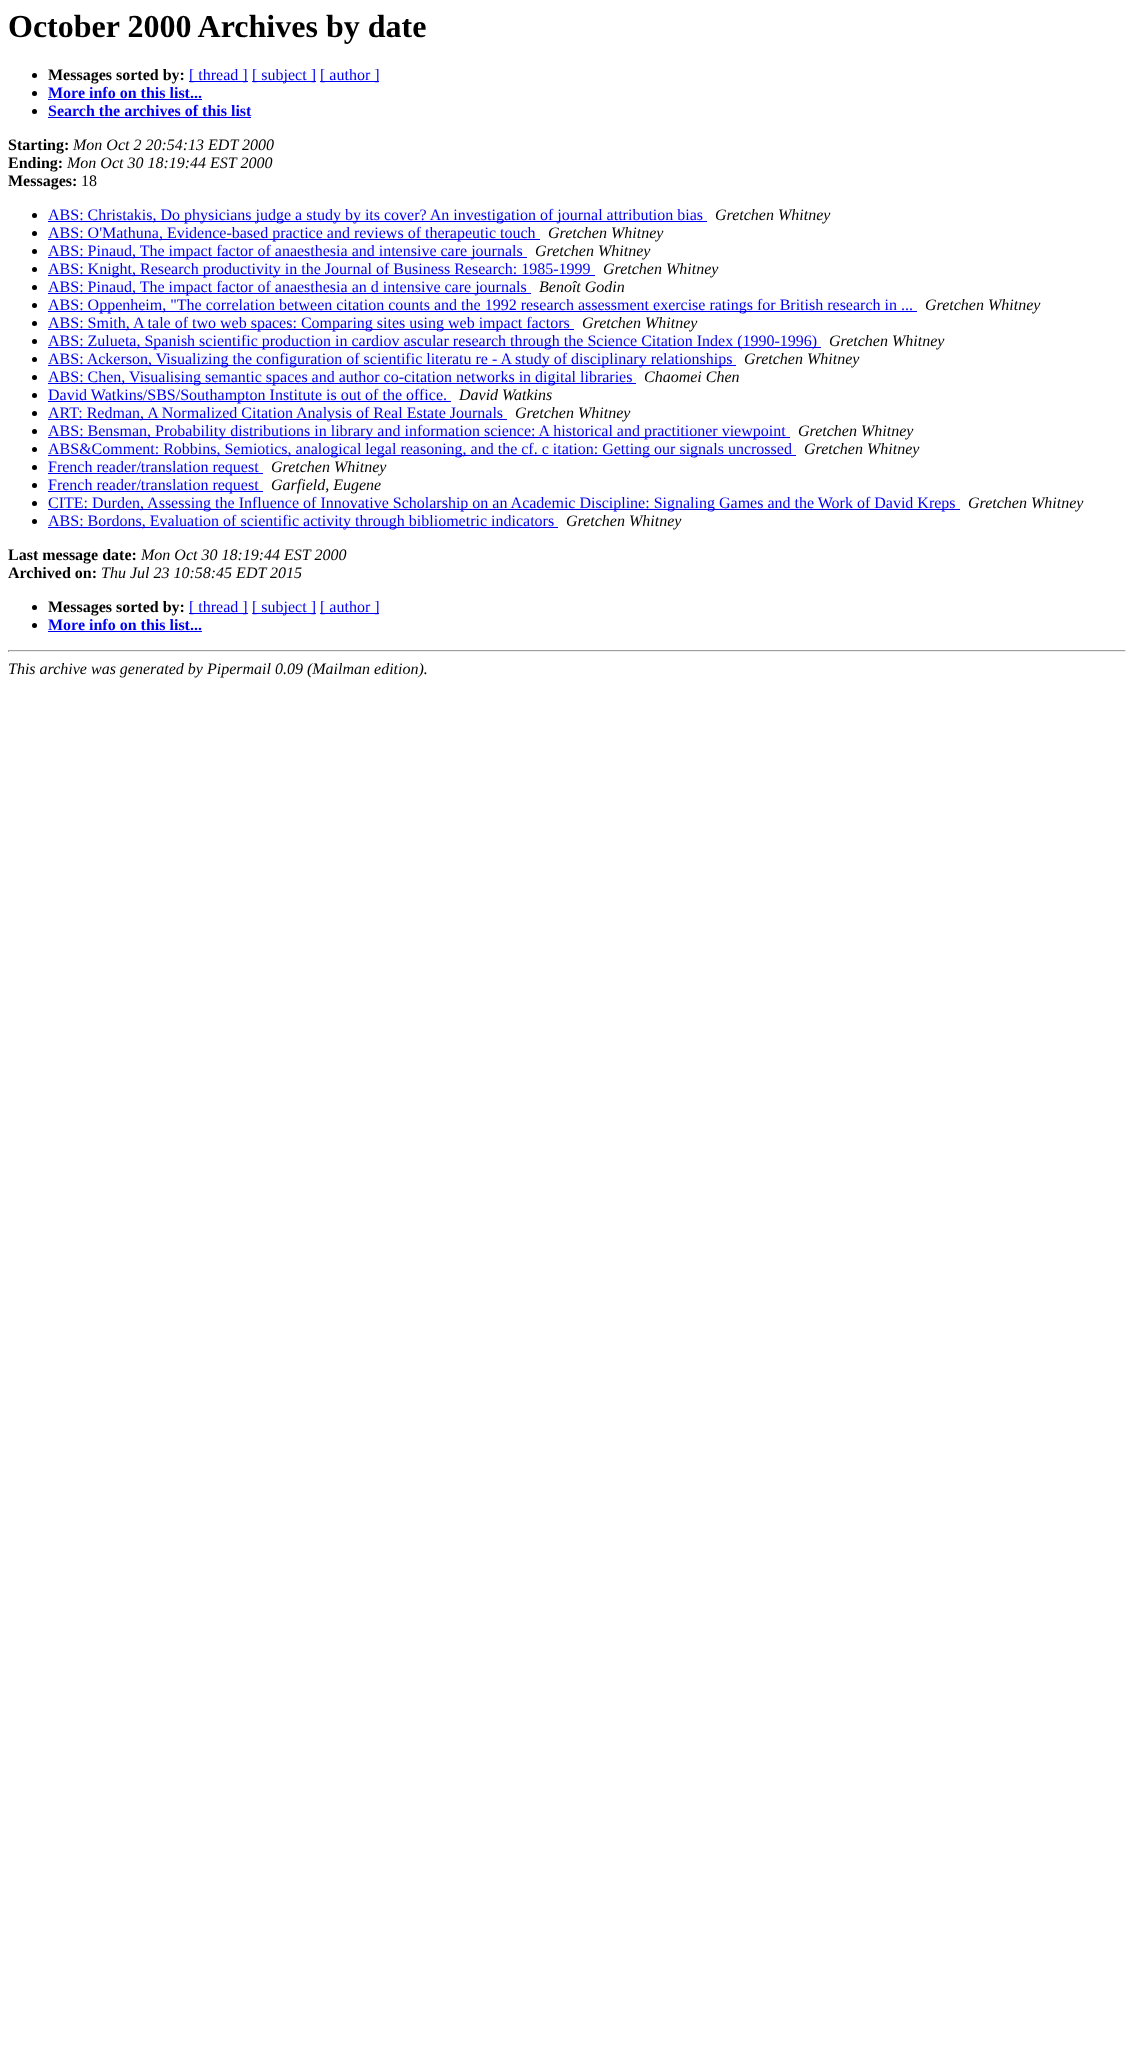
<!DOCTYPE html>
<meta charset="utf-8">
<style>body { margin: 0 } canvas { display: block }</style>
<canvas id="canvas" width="1134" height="2047"></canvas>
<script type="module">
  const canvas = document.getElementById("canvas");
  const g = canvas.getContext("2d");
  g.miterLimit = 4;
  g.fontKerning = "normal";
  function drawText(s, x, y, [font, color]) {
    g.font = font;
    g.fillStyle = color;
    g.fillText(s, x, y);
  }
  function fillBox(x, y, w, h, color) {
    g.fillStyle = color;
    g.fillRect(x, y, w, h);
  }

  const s1 = ["bold 32px Liberation Serif", "#000000"];
  const s2 = ["bold 16px Liberation Serif", "#000000"];
  const s3 = ["16px Liberation Serif", "#0000EE"];
  const s4 = ["bold 16px Liberation Serif", "#0000EE"];
  const s5 = ["italic 16px Liberation Serif", "#000000"];
  const s6 = ["16px Liberation Serif", "#000000"];

  fillBox(0, 0, 1134, 2047, "#FFFFFF");
  drawText("October 2000 Archives by date", 8, 37, s1);
  g.beginPath();
  g.arc(34.5, 75.5, 2.5, 0, Math.PI * 2);
  g.fill();
  drawText("Messages sorted by:", 48, 80, s2);
  fillBox(189, 81, 59, 1, "#0000EE");
  drawText("[ thread ]", 189, 80, s3);
  fillBox(252, 81, 64, 1, "#0000EE");
  drawText("[ subject ]", 252, 80, s3);
  fillBox(320, 81, 59, 1, "#0000EE");
  drawText("[ author ]", 320, 80, s3);
  g.fillStyle = "#000000";
  g.beginPath();
  g.arc(34.5, 93.5, 2.5, 0, Math.PI * 2);
  g.fill();
  drawText("More info on this list...", 48, 98, s4);
  fillBox(48, 99, 154, 1, "#0000EE");
  g.fillStyle = "#000000";
  g.beginPath();
  g.arc(34.5, 111.5, 2.5, 0, Math.PI * 2);
  g.fill();
  drawText("Search the archives of this list", 48, 116, s4);
  fillBox(48, 117, 203, 1, "#0000EE");
  drawText("Starting:", 8, 150, s2);
  drawText("Mon Oct 2 20:54:13 EDT 2000", 73, 150, s5);
  drawText("Ending:", 8, 168, s2);
  drawText("Mon Oct 30 18:19:44 EST 2000", 67, 168, s5);
  drawText("Messages:", 8, 186, s2);
  drawText("18", 81, 186, s6);
  g.beginPath();
  g.arc(34.5, 215.5, 2.5, 0, Math.PI * 2);
  g.fill();
  fillBox(48, 221, 659, 1, "#0000EE");
  drawText("ABS: Christakis, Do physicians judge a study by its cover? An investigation of journal attribution bias", 48, 220, s3);
  drawText("Gretchen Whitney", 715, 220, s5);
  g.beginPath();
  g.arc(34.5, 233.5, 2.5, 0, Math.PI * 2);
  g.fill();
  fillBox(48, 239, 492, 1, "#0000EE");
  drawText("ABS: O'Mathuna, Evidence-based practice and reviews of therapeutic touch", 48, 238, s3);
  drawText("Gretchen Whitney", 548, 238, s5);
  g.beginPath();
  g.arc(34.5, 251.5, 2.5, 0, Math.PI * 2);
  g.fill();
  fillBox(48, 257, 479, 1, "#0000EE");
  drawText("ABS: Pinaud, The impact factor of anaesthesia and intensive care journals", 48, 256, s3);
  drawText("Gretchen Whitney", 535, 256, s5);
  g.beginPath();
  g.arc(34.5, 269.5, 2.5, 0, Math.PI * 2);
  g.fill();
  fillBox(48, 275, 547, 1, "#0000EE");
  drawText("ABS: Knight, Research productivity in the Journal of Business Research: 1985-1999", 48, 274, s3);
  drawText("Gretchen Whitney", 603, 274, s5);
  g.beginPath();
  g.arc(34.5, 287.5, 2.5, 0, Math.PI * 2);
  g.fill();
  fillBox(48, 293, 483, 1, "#0000EE");
  drawText("ABS: Pinaud, The impact factor of anaesthesia an d intensive care journals", 48, 292, s3);
  drawText("Benoît Godin", 539, 292, s5);
  g.beginPath();
  g.arc(34.5, 305.5, 2.5, 0, Math.PI * 2);
  g.fill();
  fillBox(48, 311, 869, 1, "#0000EE");
  drawText("ABS: Oppenheim, \"The correlation between citation counts and the 1992 research assessment exercise ratings for British research in ...", 48, 310, s3);
  drawText("Gretchen Whitney", 925, 310, s5);
  g.beginPath();
  g.arc(34.5, 323.5, 2.5, 0, Math.PI * 2);
  g.fill();
  fillBox(48, 329, 526, 1, "#0000EE");
  drawText("ABS: Smith, A tale of two web spaces: Comparing sites using web impact factors", 48, 328, s3);
  drawText("Gretchen Whitney", 582, 328, s5);
  g.beginPath();
  g.arc(34.5, 341.5, 2.5, 0, Math.PI * 2);
  g.fill();
  fillBox(48, 347, 773, 1, "#0000EE");
  drawText("ABS: Zulueta, Spanish scientific production in cardiov ascular research through the Science Citation Index (1990-1996)", 48, 346, s3);
  drawText("Gretchen Whitney", 829, 346, s5);
  g.beginPath();
  g.arc(34.5, 359.5, 2.5, 0, Math.PI * 2);
  g.fill();
  fillBox(48, 365, 688, 1, "#0000EE");
  drawText("ABS: Ackerson, Visualizing the configuration of scientific literatu re - A study of disciplinary relationships", 48, 364, s3);
  drawText("Gretchen Whitney", 744, 364, s5);
  g.beginPath();
  g.arc(34.5, 377.5, 2.5, 0, Math.PI * 2);
  g.fill();
  fillBox(48, 383, 588, 1, "#0000EE");
  drawText("ABS: Chen, Visualising semantic spaces and author co-citation networks in digital libraries", 48, 382, s3);
  drawText("Chaomei Chen", 644, 382, s5);
  g.beginPath();
  g.arc(34.5, 395.5, 2.5, 0, Math.PI * 2);
  g.fill();
  fillBox(48, 401, 403, 1, "#0000EE");
  drawText("David Watkins/SBS/Southampton Institute is out of the office.", 48, 400, s3);
  drawText("David Watkins", 459, 400, s5);
  g.beginPath();
  g.arc(34.5, 413.5, 2.5, 0, Math.PI * 2);
  g.fill();
  fillBox(48, 419, 459, 1, "#0000EE");
  drawText("ART: Redman, A Normalized Citation Analysis of Real Estate Journals", 48, 418, s3);
  drawText("Gretchen Whitney", 515, 418, s5);
  g.beginPath();
  g.arc(34.5, 431.5, 2.5, 0, Math.PI * 2);
  g.fill();
  fillBox(48, 437, 742, 1, "#0000EE");
  drawText("ABS: Bensman, Probability distributions in library and information science: A historical and practitioner viewpoint", 48, 436, s3);
  drawText("Gretchen Whitney", 798, 436, s5);
  g.beginPath();
  g.arc(34.5, 449.5, 2.5, 0, Math.PI * 2);
  g.fill();
  fillBox(48, 455, 748, 1, "#0000EE");
  drawText("ABS&Comment: Robbins, Semiotics, analogical legal reasoning, and the cf. c itation: Getting our signals uncrossed", 48, 454, s3);
  drawText("Gretchen Whitney", 804, 454, s5);
  g.beginPath();
  g.arc(34.5, 467.5, 2.5, 0, Math.PI * 2);
  g.fill();
  fillBox(48, 473, 215, 1, "#0000EE");
  drawText("French reader/translation request", 48, 472, s3);
  drawText("Gretchen Whitney", 271, 472, s5);
  g.beginPath();
  g.arc(34.5, 485.5, 2.5, 0, Math.PI * 2);
  g.fill();
  fillBox(48, 491, 215, 1, "#0000EE");
  drawText("French reader/translation request", 48, 490, s3);
  drawText("Garfield, Eugene", 271, 490, s5);
  g.beginPath();
  g.arc(34.5, 503.5, 2.5, 0, Math.PI * 2);
  g.fill();
  fillBox(48, 509, 912, 1, "#0000EE");
  drawText("CITE: Durden, Assessing the Influence of Innovative Scholarship on an Academic Discipline: Signaling Games and the Work of David Kreps", 48, 508, s3);
  drawText("Gretchen Whitney", 968, 508, s5);
  g.beginPath();
  g.arc(34.5, 521.5, 2.5, 0, Math.PI * 2);
  g.fill();
  fillBox(48, 527, 510, 1, "#0000EE");
  drawText("ABS: Bordons, Evaluation of scientific activity through bibliometric indicators", 48, 526, s3);
  drawText("Gretchen Whitney", 566, 526, s5);
  drawText("Last message date:", 8, 560, s2);
  drawText("Mon Oct 30 18:19:44 EST 2000", 141, 560, s5);
  drawText("Archived on:", 8, 578, s2);
  drawText("Thu Jul 23 10:58:45 EDT 2015", 101, 578, s5);
  g.beginPath();
  g.arc(34.5, 607.5, 2.5, 0, Math.PI * 2);
  g.fill();
  drawText("Messages sorted by:", 48, 612, s2);
  fillBox(189, 613, 59, 1, "#0000EE");
  drawText("[ thread ]", 189, 612, s3);
  fillBox(252, 613, 64, 1, "#0000EE");
  drawText("[ subject ]", 252, 612, s3);
  fillBox(320, 613, 59, 1, "#0000EE");
  drawText("[ author ]", 320, 612, s3);
  g.fillStyle = "#000000";
  g.beginPath();
  g.arc(34.5, 625.5, 2.5, 0, Math.PI * 2);
  g.fill();
  drawText("More info on this list...", 48, 630, s4);
  fillBox(48, 631, 154, 1, "#0000EE");
  fillBox(8, 650, 1118, 1, "#9F9F9F");
  fillBox(1125, 650, 1, 2, "#EEEEEE");
  fillBox(8, 651, 1118, 1, "#EEEEEE");
  fillBox(8, 650, 1, 2, "#9F9F9F");
  drawText("This archive was generated by Pipermail 0.09 (Mailman edition).", 8, 674, s5);
</script>
